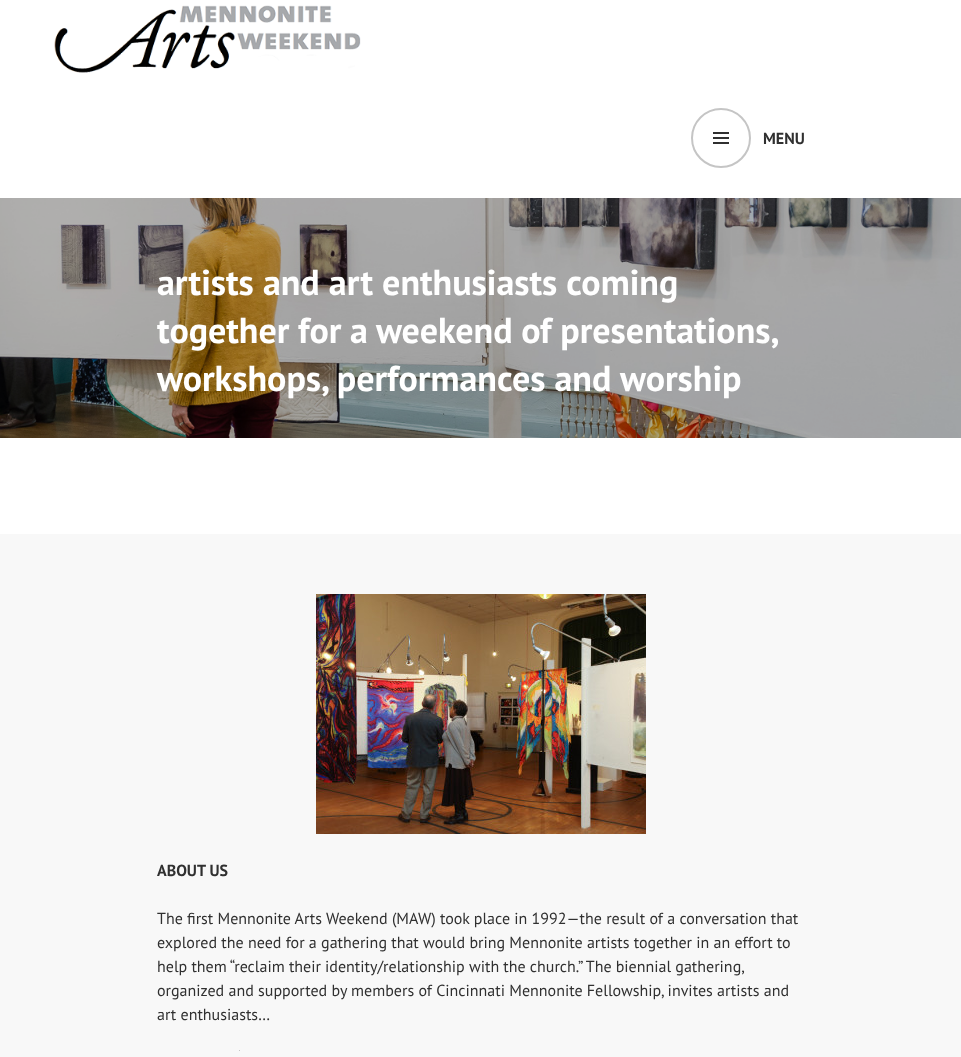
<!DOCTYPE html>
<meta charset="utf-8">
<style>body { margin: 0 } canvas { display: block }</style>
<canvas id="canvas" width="961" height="1057"></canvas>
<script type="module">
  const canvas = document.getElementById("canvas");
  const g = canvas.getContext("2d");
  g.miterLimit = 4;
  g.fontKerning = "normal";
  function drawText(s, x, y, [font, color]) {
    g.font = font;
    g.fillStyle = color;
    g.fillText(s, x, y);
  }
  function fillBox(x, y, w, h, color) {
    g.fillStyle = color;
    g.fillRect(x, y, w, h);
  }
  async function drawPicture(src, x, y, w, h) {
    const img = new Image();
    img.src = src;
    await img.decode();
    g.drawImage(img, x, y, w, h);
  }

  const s1 = ["bold 16px PT Sans", "#303030"];
  const s2 = ["bold 36px PT Sans", "#FFFFFF"];
  const s3 = ["16px PT Sans", "#303030"];

  fillBox(0, 0, 961, 1057, "#FFFFFF");
  await drawPicture("pic1.png", 54, 5, 307, 68);
  g.beginPath();
  g.arc(721, 138, 29, 0, Math.PI * 2);
  g.strokeStyle = "#C5C5C5";
  g.lineWidth = 2;
  g.stroke();
  await drawPicture("pic2.png", 713, 132, 16, 12);
  drawText("MENU", 763, 144, s1);
  await drawPicture("pic3.png", 0, 198, 961, 240);
  drawText("artists and art enthusiasts coming", 157, 295, s2);
  g.wordSpacing = "-0.5px";
  drawText("together for a weekend of presentations,", 157, 343, s2);
  g.wordSpacing = "0px";
  drawText("workshops, performances and worship", 157, 391, s2);
  fillBox(0, 534, 961, 523, "#F8F8F8");
  await drawPicture("pic4.png", 316, 594, 330, 240);
  drawText("ABOUT US", 157, 876, s1);
  drawText("The first Mennonite Arts Weekend (MAW) took place in 1992—the result of a conversation that", 157, 924, s3);
  drawText("explored the need for a gathering that would bring Mennonite artists together in an effort to", 157, 948, s3);
  g.wordSpacing = "-0.1px";
  drawText("help them “reclaim their identity/relationship with the church.” The biennial gathering,", 157, 972, s3);
  g.wordSpacing = "0px";
  drawText("organized and supported by members of Cincinnati Mennonite Fellowship, invites artists and", 157, 996, s3);
  drawText("art enthusiasts…", 157, 1020, s3);
  fillBox(239, 1050, 1, 1, "#C5C5C5");
</script>
